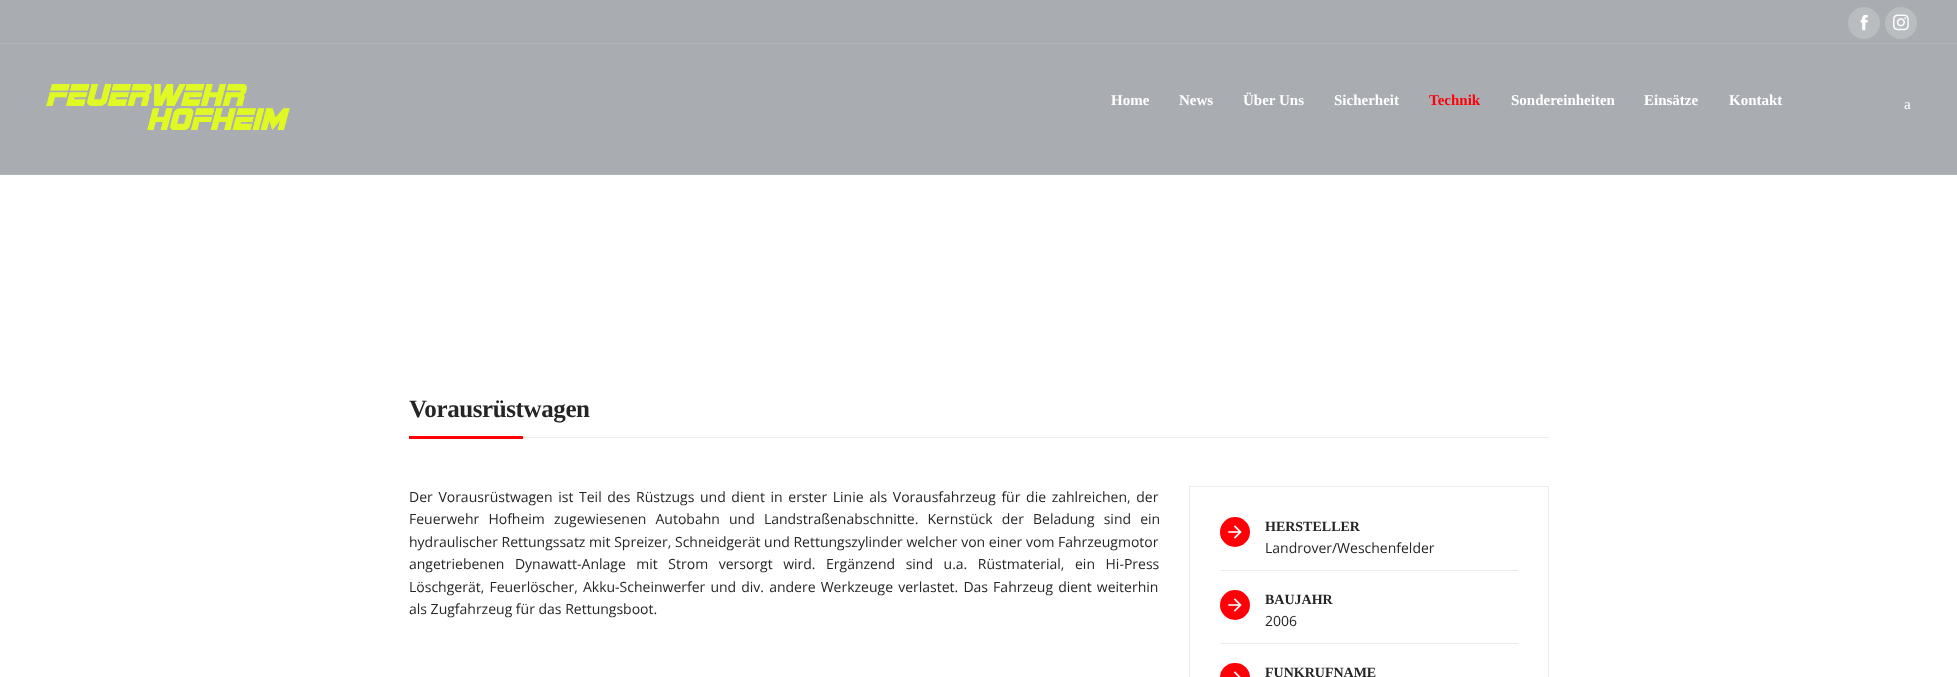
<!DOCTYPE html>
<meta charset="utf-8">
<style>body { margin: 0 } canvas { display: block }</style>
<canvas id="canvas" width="1957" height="677"></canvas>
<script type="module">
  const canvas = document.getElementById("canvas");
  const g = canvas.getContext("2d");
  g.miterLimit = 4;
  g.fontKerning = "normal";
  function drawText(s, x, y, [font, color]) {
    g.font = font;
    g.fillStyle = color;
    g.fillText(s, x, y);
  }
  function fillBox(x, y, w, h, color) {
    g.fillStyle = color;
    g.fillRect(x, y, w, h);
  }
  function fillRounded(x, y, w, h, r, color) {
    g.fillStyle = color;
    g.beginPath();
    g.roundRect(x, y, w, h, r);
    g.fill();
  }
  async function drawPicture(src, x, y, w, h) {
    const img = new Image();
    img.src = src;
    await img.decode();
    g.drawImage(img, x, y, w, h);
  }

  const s1 = ["bold 15px Liberation Serif", "#FFFFFF"];
  const s2 = ["bold 15px Liberation Serif", "#FF0008"];
  const s3 = ["15px Liberation Serif", "#FFFFFF"];
  const s4 = ["bold 25px Liberation Serif", "#252525"];
  const s5 = ["14px Open Sans", "#252525"];
  const s6 = ["bold 14px Liberation Serif", "#252525"];

  fillBox(0, 0, 1957, 677, "#FFFFFF");
  fillBox(0, 0, 1957, 43, "#A9ACB0");
  g.fillStyle = "#BABDC0";
  g.beginPath();
  g.arc(1864, 23, 16, 0, Math.PI * 2);
  g.fill();
  await drawPicture("pic1.png", 1860, 14, 8, 17);
  g.beginPath();
  g.arc(1901, 23, 16, 0, Math.PI * 2);
  g.fill();
  await drawPicture("pic2.png", 1893, 14, 16, 17);
  fillBox(0, 44, 1957, 130, "#A9ACB0");
  fillBox(0, 43, 1957, 1, "#B2B4B8");
  fillBox(0, 174, 1957, 1, "#B2B4B8");
  await drawPicture("pic3.png", 46, 84, 244, 46);
  drawText("Home", 1111, 105, s1);
  drawText("News", 1179, 105, s1);
  drawText("Über Uns", 1243, 105, s1);
  drawText("Sicherheit", 1334, 105, s1);
  drawText("Technik", 1429, 105, s2);
  drawText("Sondereinheiten", 1511, 105, s1);
  drawText("Einsätze", 1644, 105, s1);
  drawText("Kontakt", 1729, 105, s1);
  drawText("a", 1904, 109, s3);
  g.letterSpacing = "-0.4px";
  drawText("Vorausrüstwagen", 409, 417, s4);
  fillBox(409, 436, 114, 3, "#FF0008");
  fillBox(523, 437, 1026, 1, "#EBEBEB");
  g.letterSpacing = "0px";
  g.wordSpacing = "2px";
  drawText("Der Vorausrüstwagen ist Teil des Rüstzugs und dient in erster Linie als Vorausfahrzeug für die zahlreichen, der", 409, 502, s5);
  g.wordSpacing = "5.5px";
  drawText("Feuerwehr Hofheim zugewiesenen Autobahn und Landstraßenabschnitte. Kernstück der Beladung sind ein", 409, 524, s5);
  g.wordSpacing = "0px";
  drawText("hydraulischer Rettungssatz mit Spreizer, Schneidgerät und Rettungszylinder welcher von einer vom Fahrzeugmotor", 409, 547, s5);
  g.wordSpacing = "6.9px";
  drawText("angetriebenen Dynawatt-Anlage mit Strom versorgt wird. Ergänzend sind u.a. Rüstmaterial, ein Hi-Press", 409, 569, s5);
  g.wordSpacing = "1.5px";
  drawText("Löschgerät, Feuerlöscher, Akku-Scheinwerfer und div. andere Werkzeuge verlastet. Das Fahrzeug dient weiterhin", 409, 592, s5);
  g.wordSpacing = "0px";
  drawText("als Zugfahrzeug für das Rettungsboot.", 409, 614, s5);
  g.strokeStyle = "#EBEBEB";
  g.strokeRect(1189.5, 486.5, 359, 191);
  g.fillStyle = "#FF0008";
  g.beginPath();
  g.arc(1235, 532, 15, 0, Math.PI * 2);
  g.fill();
  await drawPicture("pic4.png", 1228, 525, 14, 14);
  drawText("HERSTELLER", 1265, 531, s6);
  drawText("Landrover/Weschenfelder", 1265, 553, s5);
  fillBox(1220, 570, 298, 1, "#EBEBEB");
  g.fillStyle = "#FF0008";
  g.beginPath();
  g.arc(1235, 605, 15, 0, Math.PI * 2);
  g.fill();
  await drawPicture("pic4.png", 1228, 598, 14, 14);
  drawText("BAUJAHR", 1265, 604, s6);
  drawText("2006", 1265, 626, s5);
  fillBox(1220, 643, 298, 1, "#EBEBEB");
  fillRounded(1220, 663, 30, 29, 15, "#FF0008");
  await drawPicture("pic5.png", 1233, 671, 8, 6);
  drawText("FUNKRUFNAME", 1265, 677, s6);
</script>
